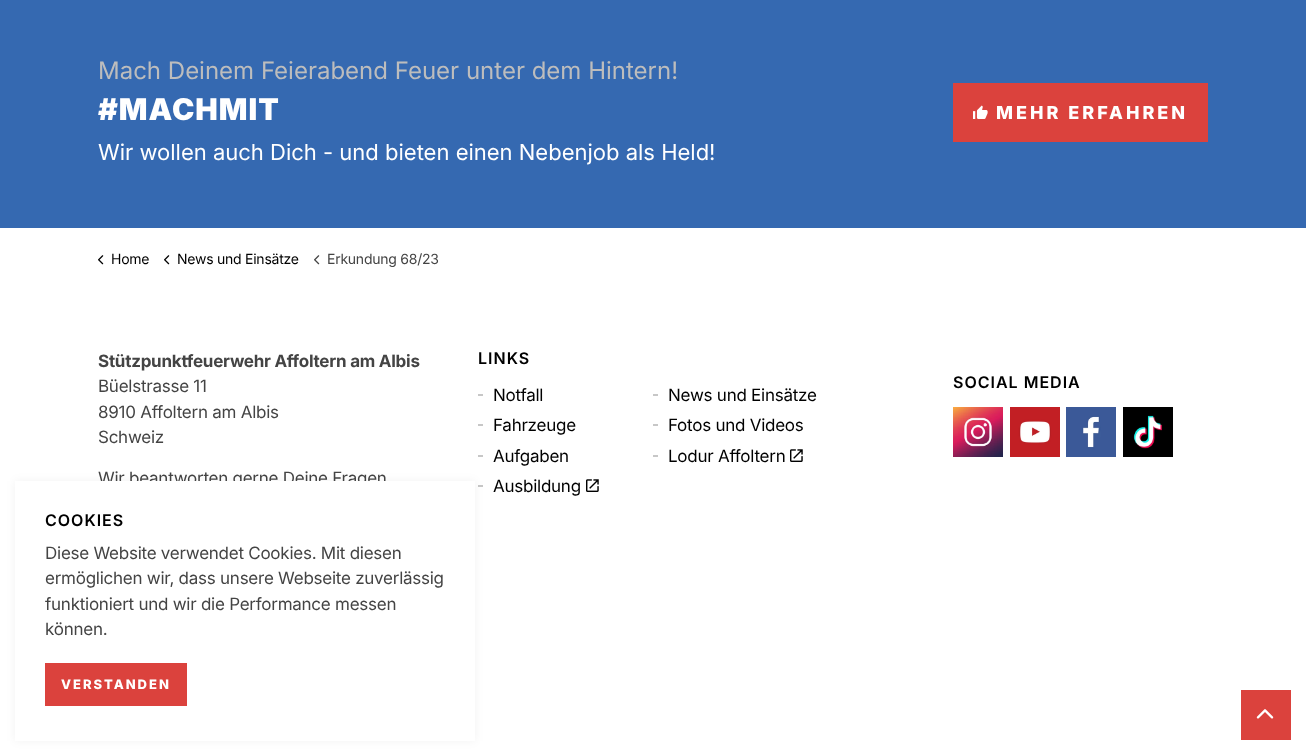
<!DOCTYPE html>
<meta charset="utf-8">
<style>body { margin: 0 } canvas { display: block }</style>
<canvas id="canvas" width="1306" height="756"></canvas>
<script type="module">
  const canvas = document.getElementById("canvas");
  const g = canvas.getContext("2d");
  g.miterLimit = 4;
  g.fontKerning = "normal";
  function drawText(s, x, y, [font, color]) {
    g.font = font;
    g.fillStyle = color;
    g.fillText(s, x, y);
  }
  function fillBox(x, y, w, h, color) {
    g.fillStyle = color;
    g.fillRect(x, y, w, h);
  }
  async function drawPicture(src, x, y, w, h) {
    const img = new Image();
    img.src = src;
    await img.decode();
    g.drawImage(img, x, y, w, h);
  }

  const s1 = ["24px Inter", "#BDBDBD"];
  const s2 = ["900 30px Inter", "#FFFFFF"];
  const s3 = ["22px Inter", "#FFFFFF"];
  const s4 = ["800 18px Inter", "#FFFFFF"];
  const s5 = ["14px Inter", "#000000"];
  const s6 = ["14px Inter", "#444444"];
  const s7 = ["bold 17px Inter", "#444444"];
  const s8 = ["17px Inter", "#444444"];
  const s9 = ["600 16px Inter", "#000000"];
  const s10 = ["17px Inter", "#000000"];
  const s11 = ["800 13px Inter", "#FFFFFF"];

  fillBox(0, 0, 1306, 756, "#FFFFFF");
  fillBox(0, 0, 1306, 228, "#3569B1");
  drawText("Mach Deinem Feierabend Feuer unter dem Hintern!", 98, 79, s1);
  g.letterSpacing = "1px";
  drawText("#MACHMIT", 98, 120, s2);
  g.letterSpacing = "0px";
  drawText("Wir wollen auch Dich - und bieten einen Nebenjob als Held!", 98, 160, s3);
  fillBox(953, 83, 255, 59, "#DB423D");
  await drawPicture("pic1.png", 973, 105, 15, 14);
  g.letterSpacing = "3px";
  drawText("MEHR ERFAHREN", 996, 119, s4);
  await drawPicture("pic2.png", 98, 255, 6, 10);
  g.letterSpacing = "-0.25px";
  drawText("Home", 111, 264, s5);
  await drawPicture("pic2.png", 164, 255, 6, 10);
  drawText("News und Einsätze", 177, 264, s5);
  await drawPicture("pic3.png", 314, 255, 6, 10);
  drawText("Erkundung 68/23", 327, 264, s6);
  drawText("Stützpunktfeuerwehr Affoltern am Albis", 98, 367, s7);
  drawText("Büelstrasse 11", 98, 392, s8);
  drawText("8910 Affoltern am Albis", 98, 418, s8);
  drawText("Schweiz", 98, 443, s8);
  drawText("Wir beantworten gerne Deine Fragen", 98, 484, s8);
  g.letterSpacing = "1px";
  drawText("LINKS", 478, 364, s9);
  fillBox(478, 394, 5, 2, "#C7C7C7");
  g.letterSpacing = "-0.25px";
  drawText("Notfall", 493, 401, s10);
  fillBox(653, 394, 5, 2, "#C7C7C7");
  drawText("News und Einsätze", 668, 401, s10);
  fillBox(478, 424, 5, 2, "#C7C7C7");
  drawText("Fahrzeuge", 493, 431, s10);
  fillBox(653, 424, 5, 2, "#C7C7C7");
  drawText("Fotos und Videos", 668, 431, s10);
  fillBox(478, 455, 5, 2, "#C7C7C7");
  drawText("Aufgaben", 493, 462, s10);
  fillBox(653, 455, 5, 2, "#C7C7C7");
  drawText("Lodur Affoltern", 668, 462, s10);
  await drawPicture("pic4.png", 790, 449, 13, 13);
  fillBox(478, 485, 5, 2, "#C7C7C7");
  drawText("Ausbildung", 493, 492, s10);
  await drawPicture("pic4.png", 586, 479, 13, 13);
  g.letterSpacing = "1px";
  drawText("SOCIAL MEDIA", 953, 388, s9);
  await drawPicture("pic5.png", 953, 407, 50, 50);
  await drawPicture("pic6.png", 1010, 407, 50, 50);
  await drawPicture("pic7.png", 1066, 407, 50, 50);
  await drawPicture("pic8.png", 1123, 407, 50, 50);
  fillBox(1241, 690, 50, 50, "#DB423D");
  await drawPicture("pic9.png", 1256, 709, 18, 10);
  g.fillStyle = "rgba(0, 0, 0, 0.05)";
  g.filter = "blur(5px)";
  g.beginPath();
  g.rect(15, 481, 460, 260);
  g.fill();
  g.filter = "none";
  fillBox(15, 481, 460, 260, "#FFFFFF");
  drawText("COOKIES", 45, 526, s9);
  g.letterSpacing = "-0.25px";
  drawText("Diese Website verwendet Cookies. Mit diesen", 45, 559, s8);
  drawText("ermöglichen wir, dass unsere Webseite zuverlässig", 45, 584, s8);
  drawText("funktioniert und wir die Performance messen", 45, 610, s8);
  drawText("können.", 45, 635, s8);
  fillBox(45, 663, 142, 43, "#DB423D");
  g.letterSpacing = "2px";
  drawText("VERSTANDEN", 61, 689, s11);
</script>
